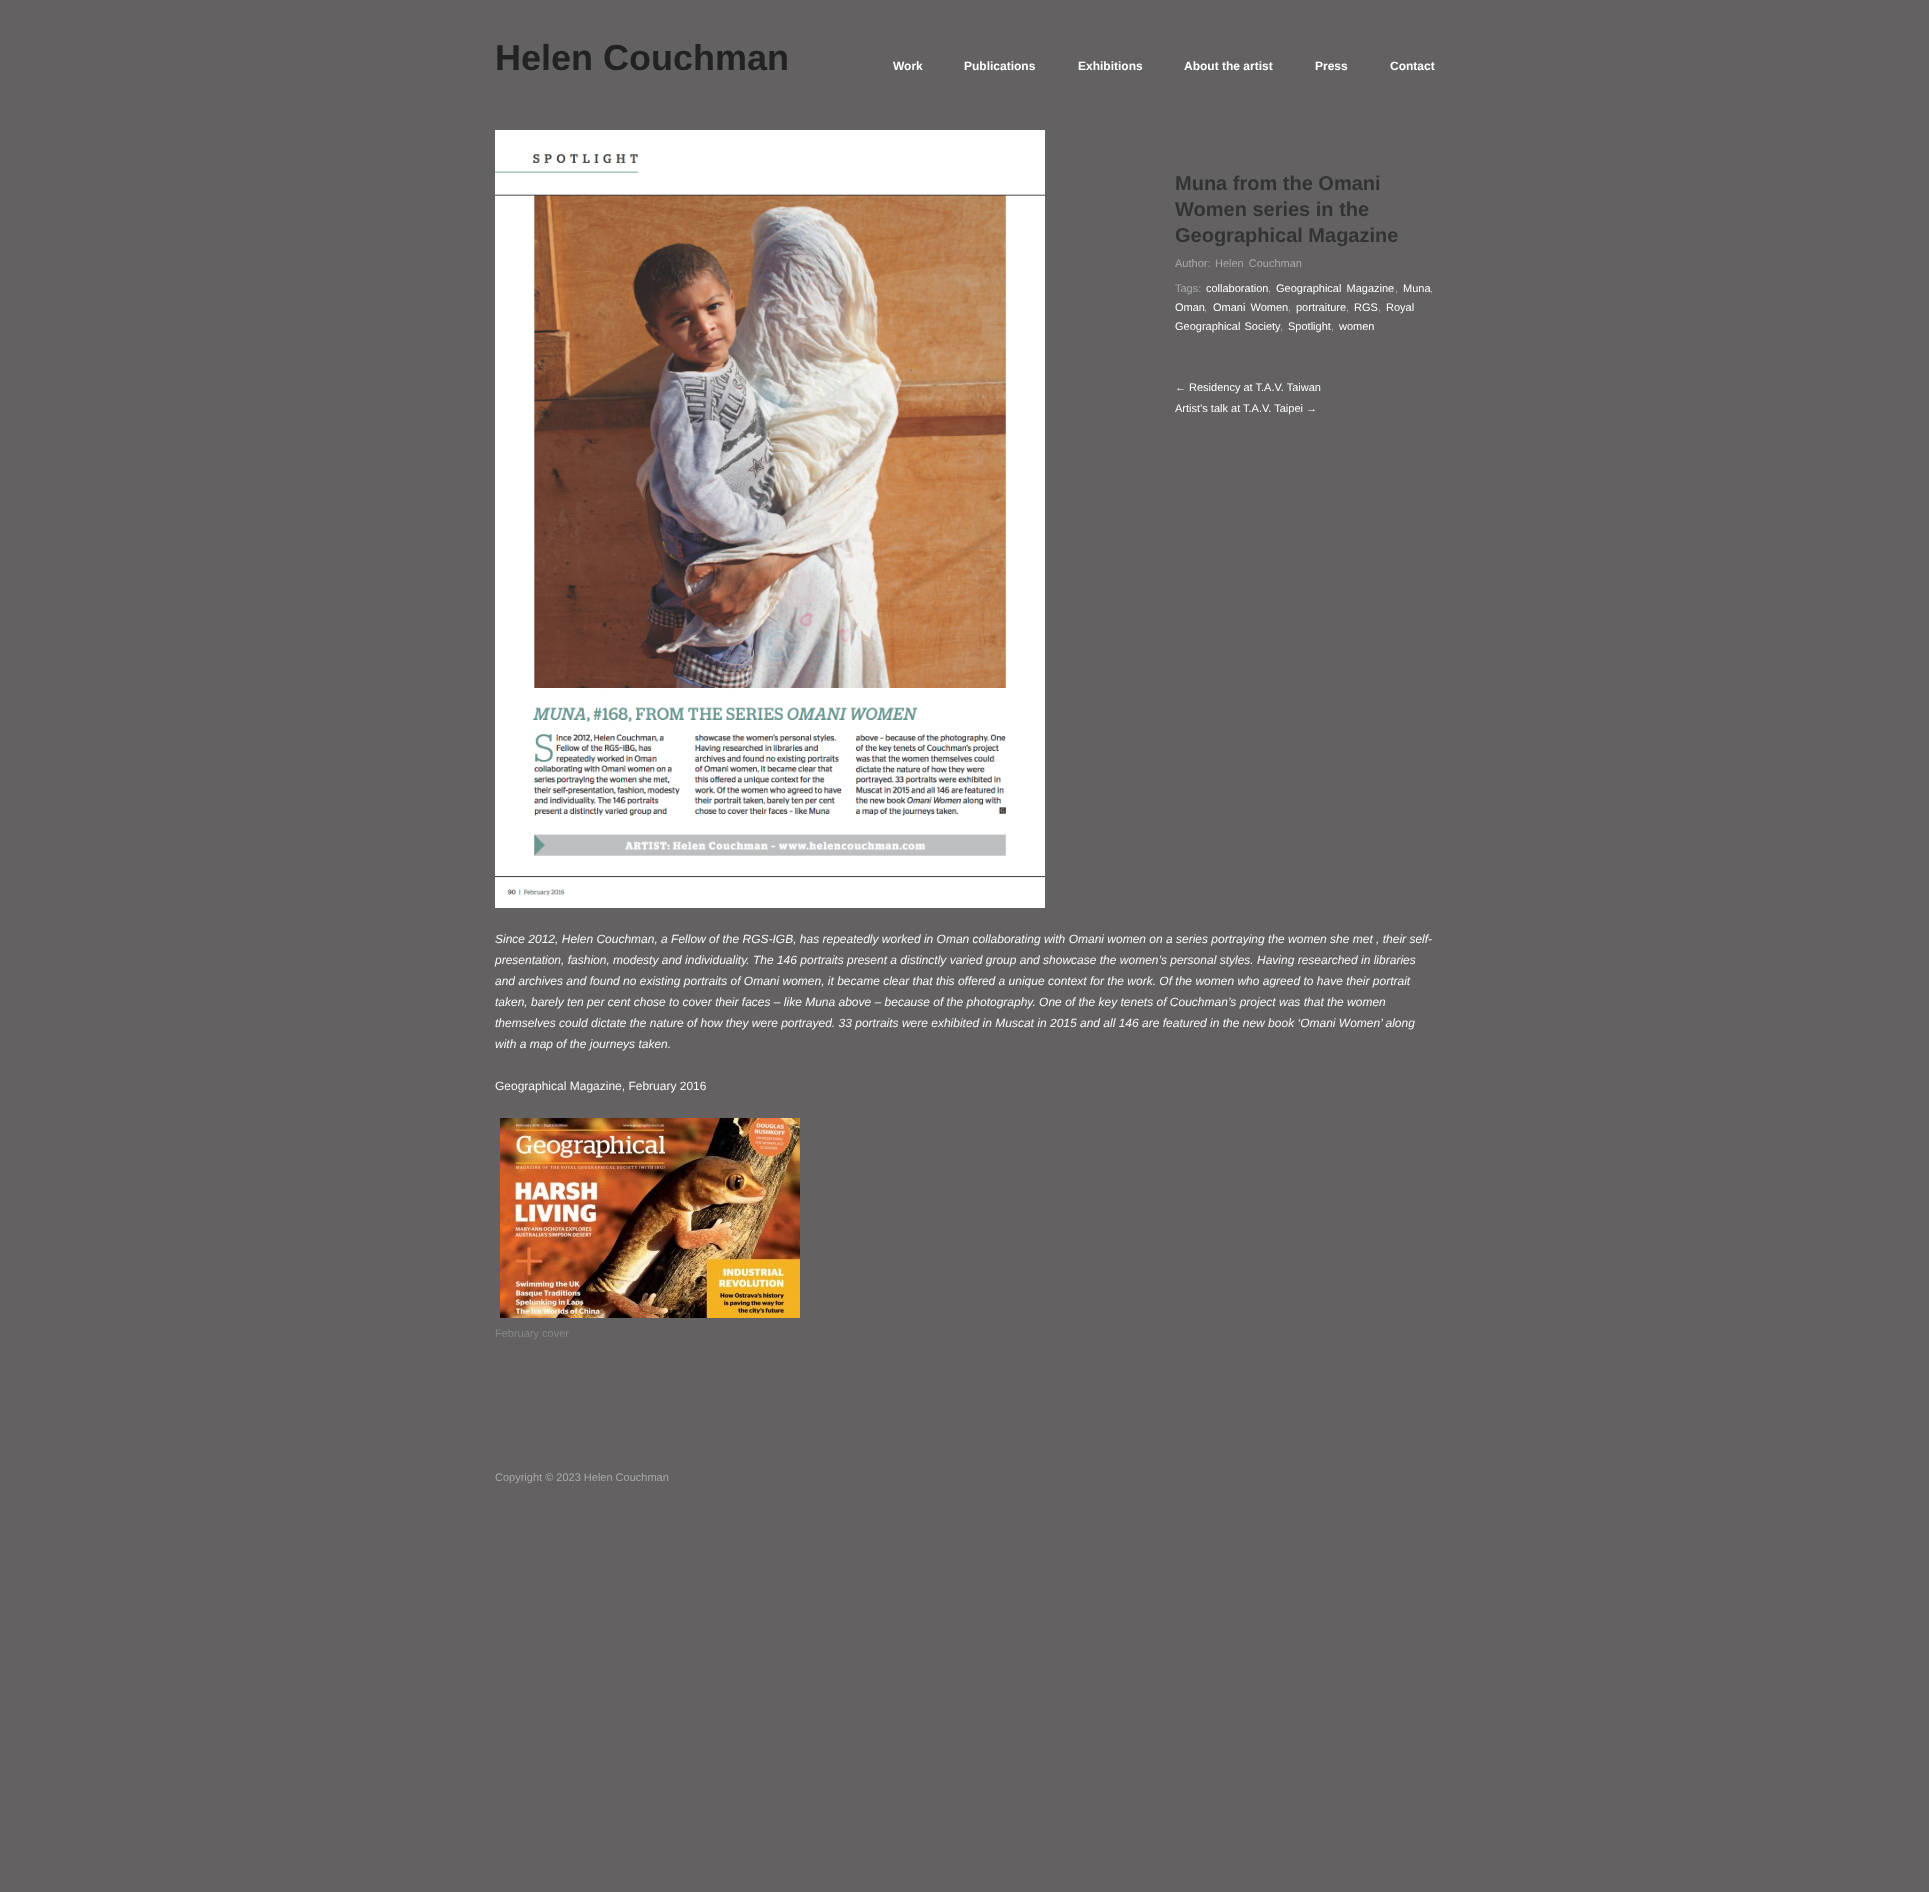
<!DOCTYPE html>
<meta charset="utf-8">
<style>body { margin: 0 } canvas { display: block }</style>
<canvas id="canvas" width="1929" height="1892"></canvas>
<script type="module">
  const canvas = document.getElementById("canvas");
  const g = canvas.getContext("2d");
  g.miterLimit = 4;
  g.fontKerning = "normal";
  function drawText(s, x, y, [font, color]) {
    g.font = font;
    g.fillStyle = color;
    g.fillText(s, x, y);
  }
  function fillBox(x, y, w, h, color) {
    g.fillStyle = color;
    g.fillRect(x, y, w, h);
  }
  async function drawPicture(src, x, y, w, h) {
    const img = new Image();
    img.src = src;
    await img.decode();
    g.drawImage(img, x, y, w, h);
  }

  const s1 = ["bold 36px Liberation Sans", "#222222"];
  const s2 = ["bold 12px Liberation Sans", "#FFFFFF"];
  const s3 = ["bold 20px Liberation Sans", "#333333"];
  const s4 = ["11px Liberation Sans", "#AAAAAA"];
  const s5 = ["11px Liberation Sans", "#FFFFFF"];
  const s6 = ["italic 12px Liberation Sans", "#F9F9F9"];
  const s7 = ["12px Liberation Sans", "#F9F9F9"];
  const s8 = ["11px Liberation Sans", "#888888"];

  fillBox(0, 0, 1929, 1892, "#636161");
  drawText("Helen Couchman", 495, 70, s1);
  drawText("Work", 893, 70, s2);
  drawText("Publications", 964, 70, s2);
  drawText("Exhibitions", 1078, 70, s2);
  drawText("About the artist", 1184, 70, s2);
  drawText("Press", 1315, 70, s2);
  drawText("Contact", 1390, 70, s2);
  drawText("Muna from the Omani", 1175, 190, s3);
  drawText("Women series in the", 1175, 216, s3);
  drawText("Geographical Magazine", 1175, 242, s3);
  drawText("Author:", 1175, 267, s4);
  g.wordSpacing = "2px";
  drawText("Helen Couchman", 1215, 267, s4);
  g.wordSpacing = "0px";
  drawText("Tags:", 1175, 292, s4);
  drawText("collaboration", 1206, 292, s5);
  drawText(",", 1268, 292, s4);
  g.wordSpacing = "2px";
  drawText("Geographical Magazine", 1276, 292, s5);
  g.wordSpacing = "0px";
  drawText(",", 1395, 292, s4);
  drawText("Muna", 1403, 292, s5);
  drawText(",", 1430, 292, s4);
  drawText("Oman", 1175, 311, s5);
  drawText(",", 1204, 311, s4);
  g.wordSpacing = "2px";
  drawText("Omani Women", 1213, 311, s5);
  g.wordSpacing = "0px";
  drawText(",", 1288, 311, s4);
  drawText("portraiture", 1296, 311, s5);
  drawText(",", 1346, 311, s4);
  drawText("RGS", 1354, 311, s5);
  drawText(",", 1378, 311, s4);
  drawText("Royal", 1386, 311, s5);
  g.wordSpacing = "1px";
  drawText("Geographical Society", 1175, 330, s5);
  g.wordSpacing = "0px";
  drawText(",", 1280, 330, s4);
  drawText("Spotlight", 1288, 330, s5);
  drawText(",", 1331, 330, s4);
  drawText("women", 1339, 330, s5);
  drawText("← Residency at T.A.V. Taiwan", 1175, 391, s5);
  drawText("Artist’s talk at T.A.V. Taipei →", 1175, 412, s5);
  await drawPicture("pic1.png", 495, 130, 550, 778);
  drawText("Since 2012, Helen Couchman, a Fellow of the RGS-IGB, has repeatedly worked in Oman collaborating with Omani women on a series portraying the women she met , their self-", 495, 943, s6);
  drawText("presentation, fashion, modesty and individuality. The 146 portraits present a distinctly varied group and showcase the women’s personal styles. Having researched in libraries", 495, 964, s6);
  drawText("and archives and found no existing portraits of Omani women, it became clear that this offered a unique context for the work. Of the women who agreed to have their portrait", 495, 985, s6);
  drawText("taken, barely ten per cent chose to cover their faces – like Muna above – because of the photography. One of the key tenets of Couchman’s project was that the women", 495, 1006, s6);
  drawText("themselves could dictate the nature of how they were portrayed. 33 portraits were exhibited in Muscat in 2015 and all 146 are featured in the new book ‘Omani Women’ along", 495, 1027, s6);
  drawText("with a map of the journeys taken.", 495, 1048, s6);
  drawText("Geographical Magazine, February 2016", 495, 1090, s7);
  await drawPicture("pic2.png", 500, 1118, 300, 200);
  drawText("February cover", 495, 1337, s8);
  drawText("Copyright © 2023 Helen Couchman", 495, 1481, s4);
</script>
